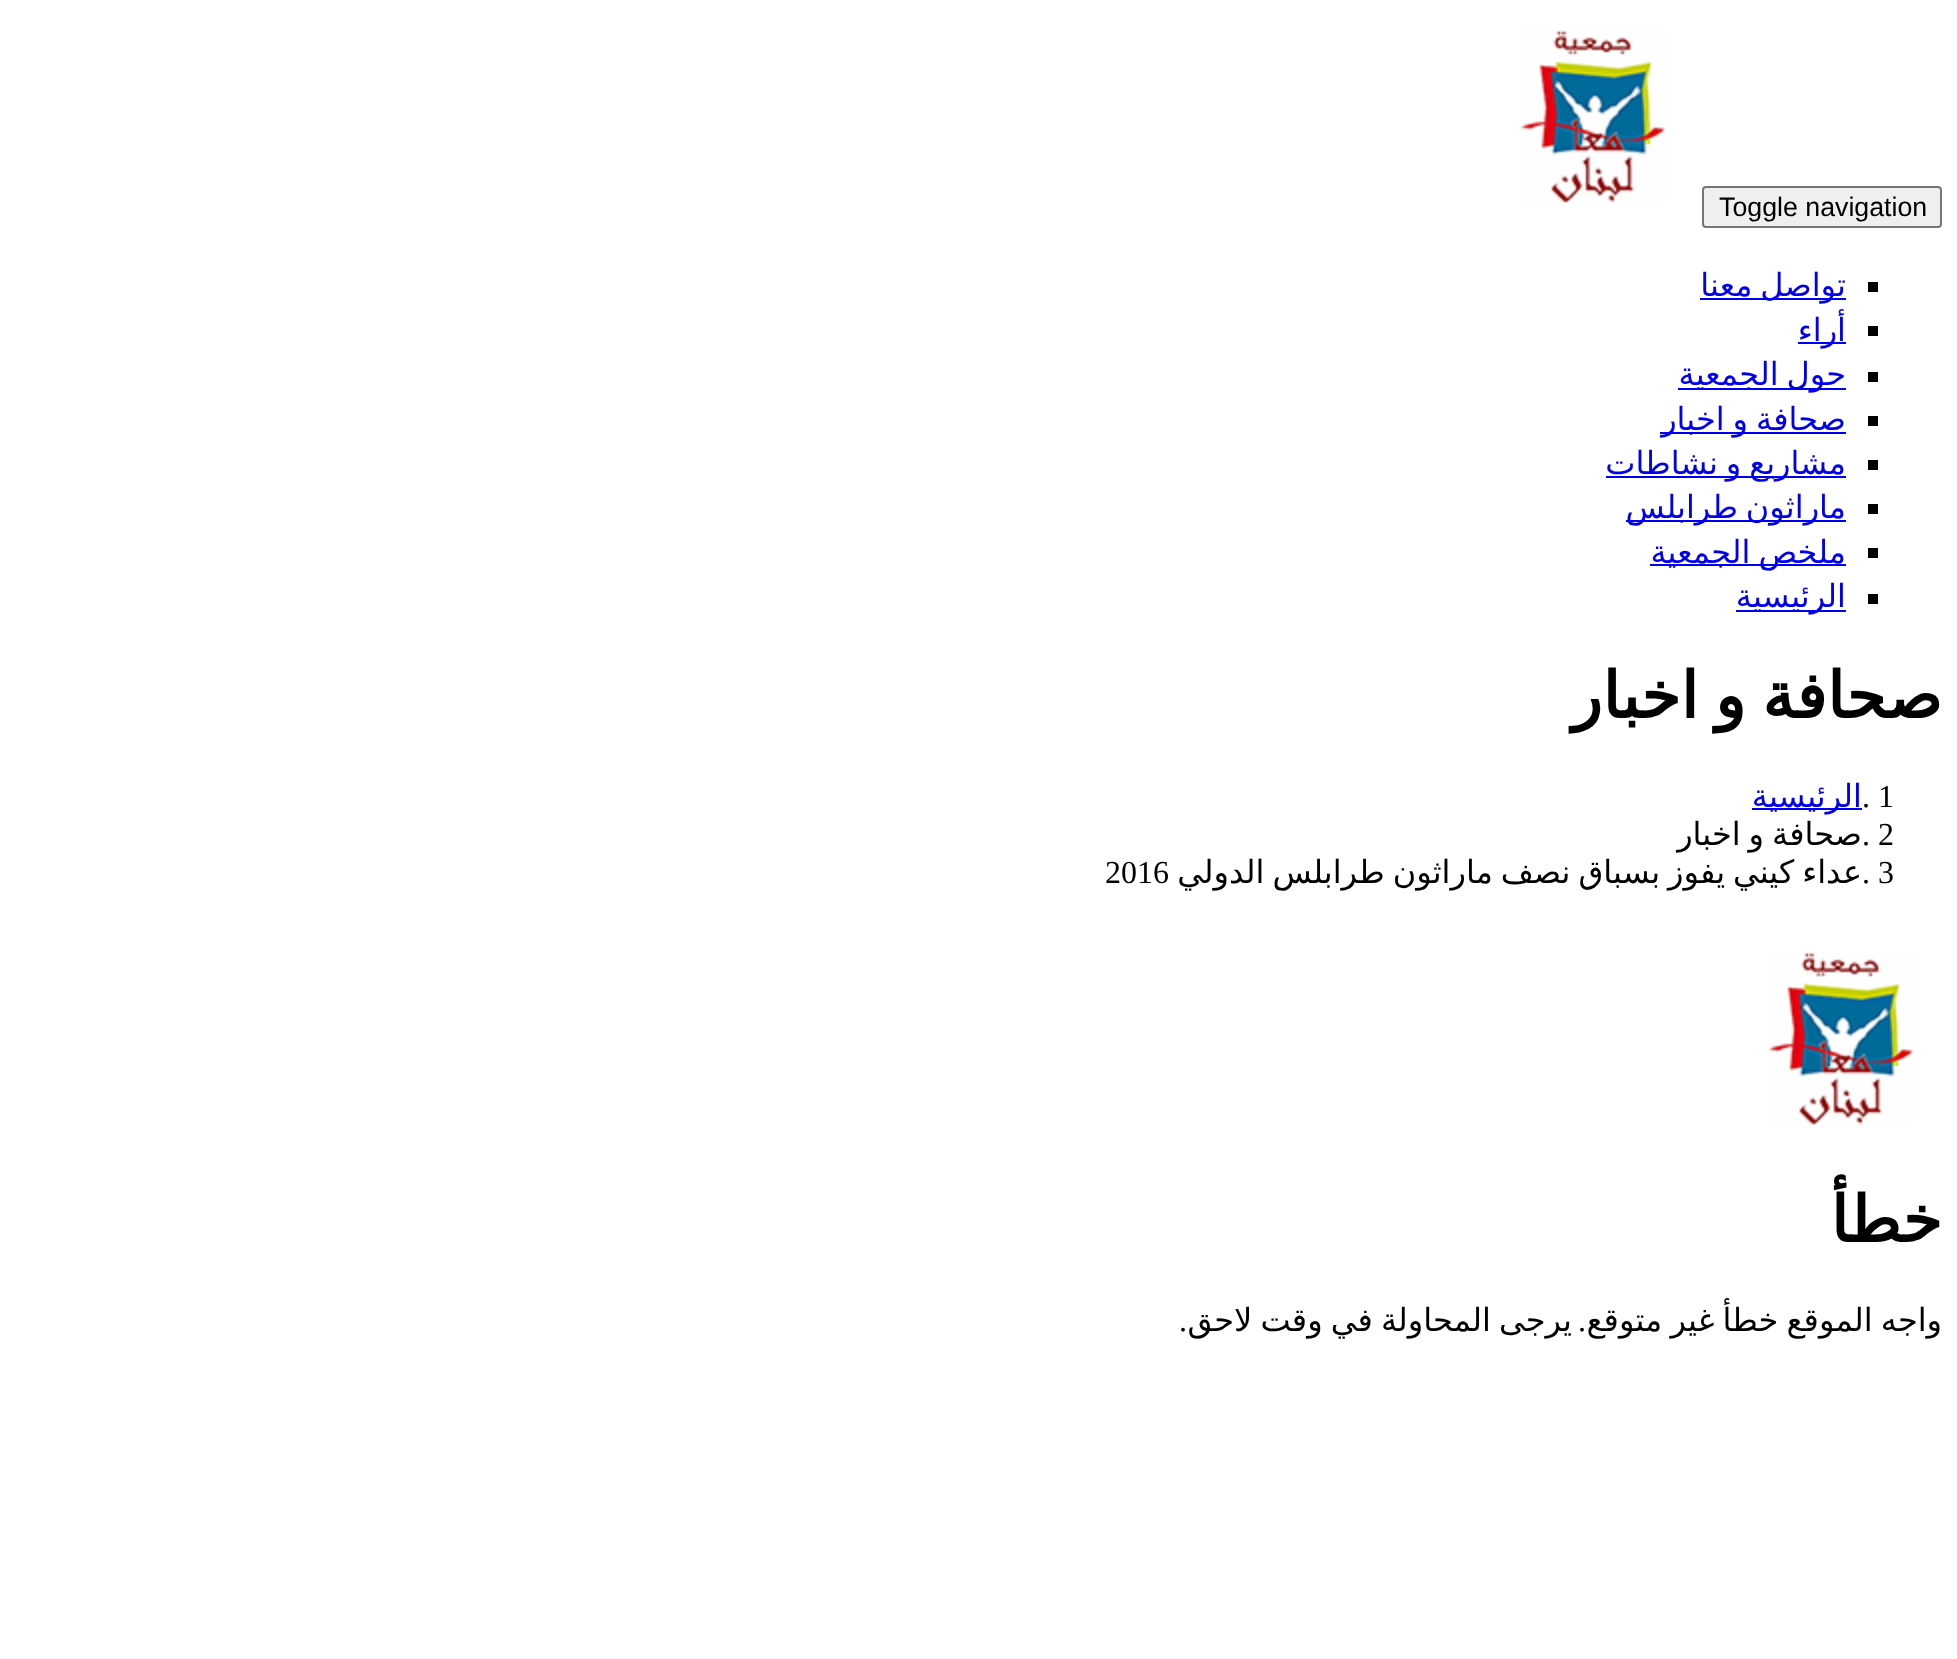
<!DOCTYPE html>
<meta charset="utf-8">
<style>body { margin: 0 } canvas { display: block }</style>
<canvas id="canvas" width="1957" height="1659"></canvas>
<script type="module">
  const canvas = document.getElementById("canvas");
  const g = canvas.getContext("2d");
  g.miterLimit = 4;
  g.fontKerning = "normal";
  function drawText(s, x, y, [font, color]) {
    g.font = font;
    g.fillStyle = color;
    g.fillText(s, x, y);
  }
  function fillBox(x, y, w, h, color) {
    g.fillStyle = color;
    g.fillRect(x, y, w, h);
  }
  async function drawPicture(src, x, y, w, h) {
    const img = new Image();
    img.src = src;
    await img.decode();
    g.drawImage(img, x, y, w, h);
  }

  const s1 = ["26.75px Liberation Sans", "#000000"];
  const s2 = ["32px DejaVu Sans", "#0000EE"];
  const s3 = ["bold 64px DejaVu Sans", "#000000"];
  const s4 = ["32px Liberation Serif", "#000000"];
  const s5 = ["32px DejaVu Sans", "#000000"];

  fillBox(0, 0, 1957, 1659, "#FFFFFF");
  await drawPicture("pic1.png", 1520, 29, 146, 174);
  g.fillStyle = "#EFEFEF";
  g.beginPath();
  g.roundRect(1703, 187, 238, 40, 3);
  g.fill();
  g.strokeStyle = "#767676";
  g.lineWidth = 2;
  g.stroke();
  drawText("Toggle navigation", 1719, 216, s1);
  fillBox(1868, 282, 10, 10, "#000000");
  fillBox(1700, 298, 146, 2, "#0000EE");
  g.wordSpacing = "-2.25px";
  g.direction = "rtl";
  drawText("تواصل معنا", 1846, 296, s2);
  fillBox(1868, 326, 10, 10, "#000000");
  fillBox(1798, 342, 48, 2, "#0000EE");
  g.wordSpacing = "0px";
  drawText("أراء", 1846, 341, s2);
  fillBox(1868, 372, 10, 10, "#000000");
  fillBox(1678, 388, 168, 2, "#0000EE");
  g.wordSpacing = "-2.25px";
  drawText("حول الجمعية", 1846, 385, s2);
  fillBox(1868, 416, 10, 10, "#000000");
  fillBox(1660, 432, 186, 2, "#0000EE");
  drawText("صحافة و اخبار", 1846, 430, s2);
  fillBox(1868, 460, 10, 10, "#000000");
  fillBox(1606, 476, 240, 2, "#0000EE");
  drawText("مشاريع و نشاطات", 1846, 474, s2);
  fillBox(1868, 504, 10, 10, "#000000");
  fillBox(1626, 520, 220, 2, "#0000EE");
  drawText("ماراثون طرابلس", 1846, 518, s2);
  fillBox(1868, 548, 10, 10, "#000000");
  fillBox(1650, 564, 196, 2, "#0000EE");
  drawText("ملخص الجمعية", 1846, 563, s2);
  fillBox(1868, 594, 10, 10, "#000000");
  fillBox(1736, 610, 110, 2, "#0000EE");
  g.wordSpacing = "0px";
  drawText("الرئيسية", 1846, 607, s2);
  g.wordSpacing = "-4px";
  drawText("صحافة و اخبار", 1942, 718, s3);
  g.wordSpacing = "0px";
  g.direction = "ltr";
  drawText(". 1", 1862, 807, s4);
  fillBox(1752, 808, 110, 2, "#0000EE");
  g.direction = "rtl";
  drawText("الرئيسية", 1862, 807, s2);
  g.direction = "ltr";
  drawText(". 2", 1862, 845, s4);
  g.wordSpacing = "-2.25px";
  g.direction = "rtl";
  drawText("صحافة و اخبار", 1862, 845, s5);
  g.wordSpacing = "0px";
  g.direction = "ltr";
  drawText(". 3", 1862, 883, s4);
  g.wordSpacing = "-2.25px";
  g.direction = "rtl";
  drawText("عداء كيني يفوز بسباق نصف ماراثون طرابلس الدولي", 1862, 883, s5);
  g.wordSpacing = "0px";
  g.direction = "ltr";
  drawText("2016", 1105, 883, s4);
  await drawPicture("pic1.png", 1768, 951, 146, 174);
  g.direction = "rtl";
  drawText("خطأ", 1942, 1242, s3);
  g.wordSpacing = "-2px";
  drawText("واجه الموقع خطأ غير متوقع", 1942, 1331, s5);
  g.wordSpacing = "0px";
  drawText(".", 1586, 1331, s4);
  g.wordSpacing = "-2px";
  drawText("يرجى المحاولة في وقت لاحق", 1572, 1331, s5);
  g.wordSpacing = "0px";
  drawText(".", 1187, 1331, s4);
</script>
